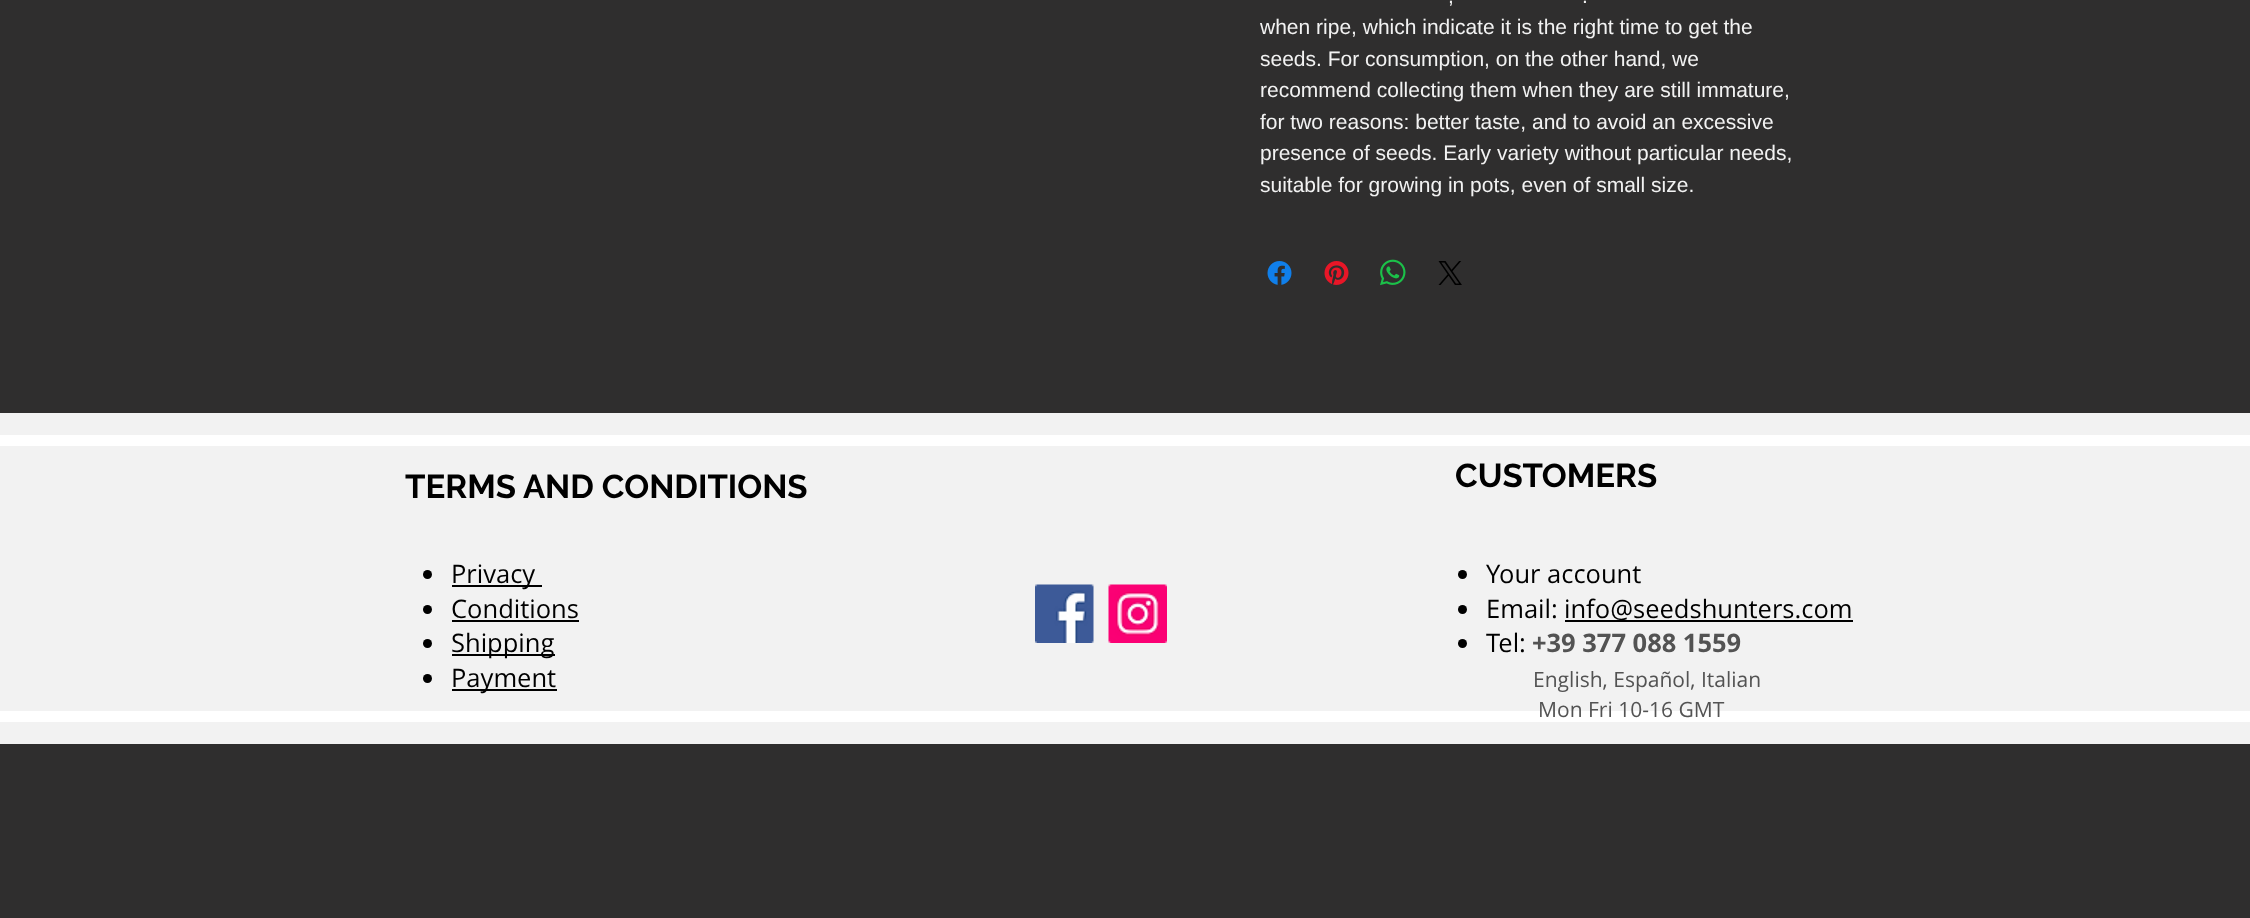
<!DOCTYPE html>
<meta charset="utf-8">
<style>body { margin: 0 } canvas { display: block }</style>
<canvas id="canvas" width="2250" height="918"></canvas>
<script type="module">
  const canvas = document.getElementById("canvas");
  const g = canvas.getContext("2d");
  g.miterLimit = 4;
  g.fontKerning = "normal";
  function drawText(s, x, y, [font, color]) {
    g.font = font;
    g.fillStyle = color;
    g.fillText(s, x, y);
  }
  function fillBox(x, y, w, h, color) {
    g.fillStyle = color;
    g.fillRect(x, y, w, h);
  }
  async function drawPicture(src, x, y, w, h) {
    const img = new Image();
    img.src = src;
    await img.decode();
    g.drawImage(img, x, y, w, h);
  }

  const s1 = ["21px Liberation Sans", "#F2F2F2"];
  const s2 = ["bold 33px Raleway", "#000000"];
  const s3 = ["25.5px Open Sans", "#000000"];
  const s4 = ["bold 25.5px Open Sans", "#535353"];
  const s5 = ["21px Open Sans", "#535353"];

  fillBox(0, 0, 2250, 918, "#2F2E2E");
  drawText(",", 1448, 3, s1);
  drawText(".", 1582, 3, s1);
  drawText("when ripe, which indicate it is the right time to get the", 1260, 34, s1);
  drawText("seeds. For consumption, on the other hand, we", 1260, 66, s1);
  drawText("recommend collecting them when they are still immature,", 1260, 97, s1);
  drawText("for two reasons: better taste, and to avoid an excessive", 1260, 129, s1);
  drawText("presence of seeds. Early variety without particular needs,", 1260, 160, s1);
  drawText("suitable for growing in pots, even of small size.", 1260, 192, s1);
  await drawPicture("pic1.png", 1267, 261, 25, 24);
  await drawPicture("pic2.png", 1324, 261, 25, 24);
  await drawPicture("pic3.png", 1380, 259, 26, 27);
  await drawPicture("pic4.png", 1438, 261, 24, 24);
  fillBox(0, 413, 2250, 331, "#F2F2F2");
  fillBox(0, 435, 2250, 11, "#FFFFFF");
  fillBox(0, 711, 2250, 11, "#FFFFFF");
  drawText("TERMS AND CONDITIONS", 405, 498, s2);
  drawText("CUSTOMERS", 1455, 487, s2);
  g.beginPath();
  g.arc(427.5, 574.5, 4.5, 0, Math.PI * 2);
  g.fill();
  fillBox(452, 585, 90, 2, "#000000");
  drawText("Privacy", 451, 583, s3);
  g.beginPath();
  g.arc(427.5, 609.5, 4.5, 0, Math.PI * 2);
  g.fill();
  drawText("Conditions", 451, 618, s3);
  fillBox(452, 620, 127, 2, "#000000");
  g.beginPath();
  g.arc(427.5, 643.5, 4.5, 0, Math.PI * 2);
  g.fill();
  fillBox(452, 654, 103, 2, "#000000");
  drawText("Shipping", 451, 652, s3);
  g.beginPath();
  g.arc(427.5, 678.5, 4.5, 0, Math.PI * 2);
  g.fill();
  fillBox(452, 689, 105, 2, "#000000");
  drawText("Payment", 451, 687, s3);
  await drawPicture("pic5.png", 1035, 584, 59, 59);
  await drawPicture("pic6.png", 1108, 584, 59, 59);
  g.beginPath();
  g.arc(1462.5, 574.5, 4.5, 0, Math.PI * 2);
  g.fill();
  drawText("Your account", 1486, 583, s3);
  g.beginPath();
  g.arc(1462.5, 609.5, 4.5, 0, Math.PI * 2);
  g.fill();
  drawText("Email:", 1486, 618, s3);
  fillBox(1565, 620, 288, 2, "#000000");
  drawText("info@seedshunters.com", 1564, 618, s3);
  g.beginPath();
  g.arc(1462.5, 643.5, 4.5, 0, Math.PI * 2);
  g.fill();
  drawText("Tel:", 1486, 652, s3);
  drawText("+39 377 088 1559", 1532, 652, s4);
  drawText("English, Español, Italian", 1533, 687, s5);
  drawText("Mon Fri 10-16 GMT", 1538, 717, s5);
</script>
